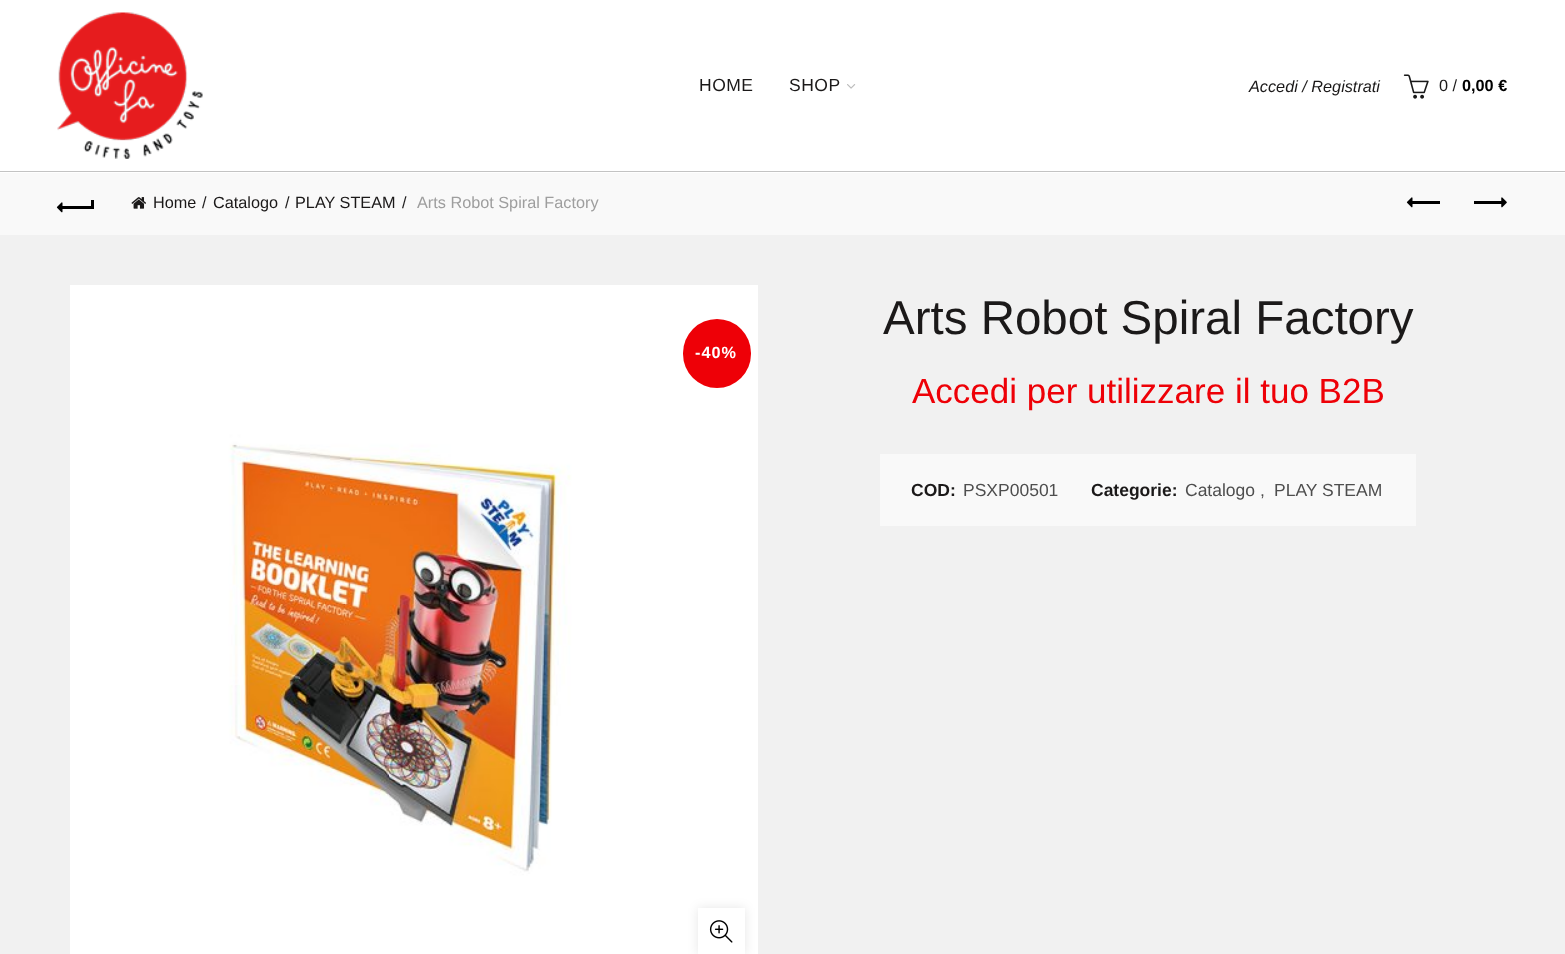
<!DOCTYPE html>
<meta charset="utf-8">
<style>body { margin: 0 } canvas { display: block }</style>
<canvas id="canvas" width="1565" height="954"></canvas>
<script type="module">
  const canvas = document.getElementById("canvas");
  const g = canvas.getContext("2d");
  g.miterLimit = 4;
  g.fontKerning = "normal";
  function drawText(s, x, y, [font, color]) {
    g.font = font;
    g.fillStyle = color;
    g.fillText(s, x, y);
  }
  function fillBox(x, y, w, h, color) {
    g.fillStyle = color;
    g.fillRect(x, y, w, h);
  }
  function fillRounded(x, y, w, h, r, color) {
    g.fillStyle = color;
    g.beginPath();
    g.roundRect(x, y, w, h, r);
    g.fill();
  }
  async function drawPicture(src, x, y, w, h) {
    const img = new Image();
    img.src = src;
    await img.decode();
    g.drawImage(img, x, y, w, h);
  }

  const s1 = ["17.5px Liberation Sans", "#1B1919"];
  const s2 = ["italic 16.25px Liberation Sans", "#1B1919"];
  const s3 = ["16.25px Liberation Sans", "#1B1919"];
  const s4 = ["bold 16.25px Liberation Sans", "#000000"];
  const s5 = ["16.25px Liberation Sans", "#9E9E9E"];
  const s6 = ["bold 16.25px Liberation Sans", "#FFFFFF"];
  const s7 = ["47.5px Liberation Sans", "#1B1919"];
  const s8 = ["35px Liberation Sans", "#EE0007"];
  const s9 = ["bold 17.5px Liberation Sans", "#1B1919"];
  const s10 = ["17.5px Liberation Sans", "#4E4E4E"];

  fillBox(0, 0, 1565, 954, "#FFFFFF");
  fillBox(0, 171, 1565, 1, "#C3C3C3");
  await drawPicture("pic1.png", 57, 12, 146, 147);
  g.letterSpacing = "0.5px";
  drawText("HOME", 699, 91, s1);
  drawText("SHOP", 789, 91, s1);
  await drawPicture("pic2.png", 847, 84, 9, 5);
  g.letterSpacing = "0px";
  drawText("Accedi / Registrati", 1249, 92, s2);
  await drawPicture("pic3.png", 1403, 74, 26, 25);
  drawText("0 /", 1439, 91, s3);
  drawText("0,00 €", 1462, 91, s4);
  fillBox(0, 235, 1565, 719, "#F1F1F1");
  fillBox(0, 173, 1565, 62, "#F9F9F9");
  fillBox(61, 206, 32, 3, "#000000");
  await drawPicture("pic4.png", 56, 202, 7, 11);
  fillBox(91, 200, 3, 9, "#000000");
  await drawPicture("pic5.png", 131, 197, 15, 12);
  drawText("Home", 153, 208, s3);
  drawText("/", 202, 208, s3);
  drawText("Catalogo", 213, 208, s3);
  drawText("/", 285, 208, s3);
  drawText("PLAY STEAM", 295, 208, s3);
  drawText("/", 402, 208, s3);
  drawText("Arts Robot Spiral Factory", 417, 208, s5);
  fillBox(1411, 201, 29, 3, "#000000");
  await drawPicture("pic4.png", 1406, 197, 7, 11);
  fillBox(1474, 201, 29, 3, "#000000");
  await drawPicture("pic6.png", 1501, 197, 6, 11);
  await drawPicture("pic7.png", 70, 285, 688, 669);
  g.save();
  g.beginPath();
  g.moveTo(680, 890);
  g.lineTo(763, 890);
  g.lineTo(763, 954);
  g.lineTo(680, 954);
  g.closePath();
  g.moveTo(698, 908);
  g.lineTo(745, 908);
  g.lineTo(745, 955);
  g.lineTo(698, 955);
  g.closePath();
  g.clip("evenodd");
  g.fillStyle = "rgba(0, 0, 0, 0.1)";
  g.filter = "blur(5.5px)";
  g.beginPath();
  g.rect(698, 908, 47, 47);
  g.fill();
  g.filter = "none";
  g.restore();
  await drawPicture("pic8.png", 709, 920, 24, 23);
  fillRounded(683, 319, 68, 69, 34, "#EE0007");
  g.letterSpacing = "1px";
  drawText("-40%", 695, 358, s6);
  g.letterSpacing = "0px";
  drawText("Arts Robot Spiral Factory", 883, 334, s7);
  drawText("Accedi per utilizzare il tuo B2B", 912, 403, s8);
  fillBox(880, 454, 536, 72, "#F9F9F9");
  drawText("COD:", 911, 496, s9);
  drawText("PSXP00501", 963, 496, s10);
  drawText("Categorie:", 1091, 496, s9);
  drawText("Catalogo ,", 1185, 496, s10);
  drawText("PLAY STEAM", 1274, 496, s10);
</script>
